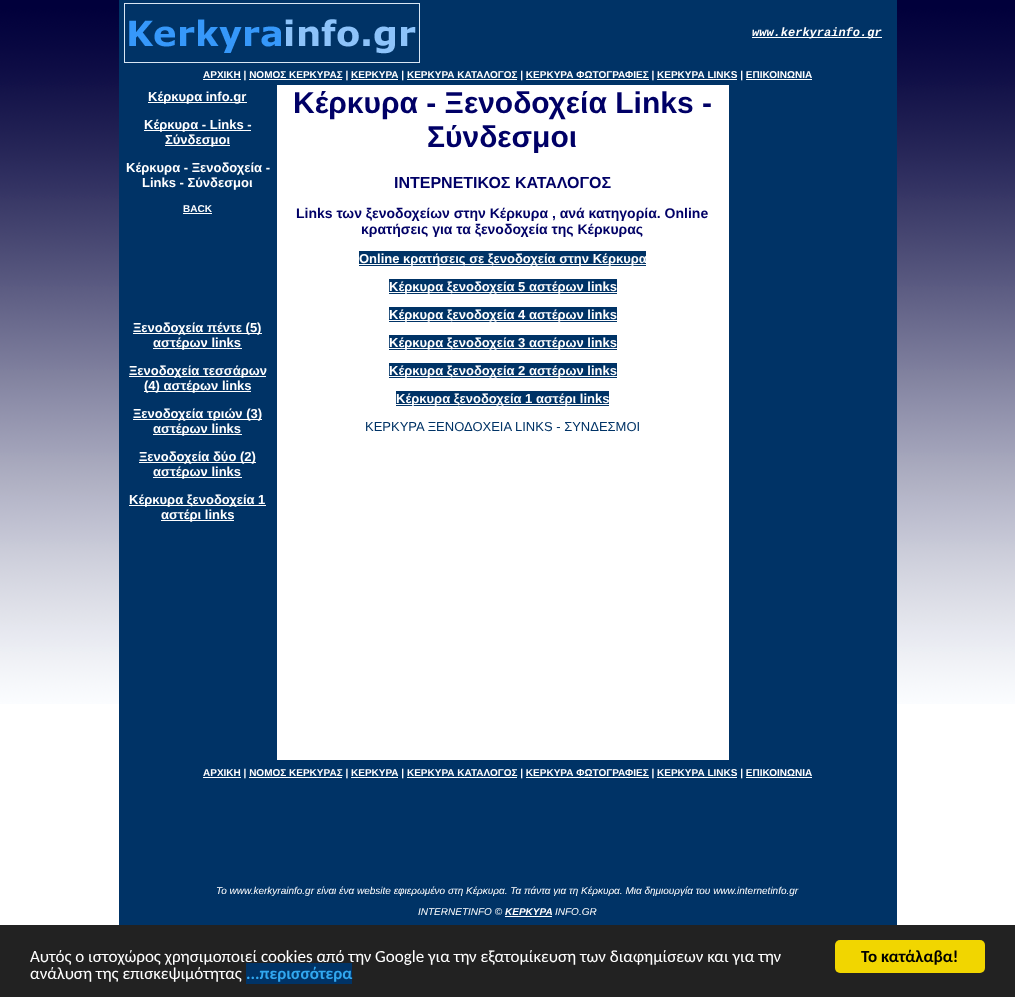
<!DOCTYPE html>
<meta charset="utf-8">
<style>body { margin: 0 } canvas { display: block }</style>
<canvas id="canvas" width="1015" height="997"></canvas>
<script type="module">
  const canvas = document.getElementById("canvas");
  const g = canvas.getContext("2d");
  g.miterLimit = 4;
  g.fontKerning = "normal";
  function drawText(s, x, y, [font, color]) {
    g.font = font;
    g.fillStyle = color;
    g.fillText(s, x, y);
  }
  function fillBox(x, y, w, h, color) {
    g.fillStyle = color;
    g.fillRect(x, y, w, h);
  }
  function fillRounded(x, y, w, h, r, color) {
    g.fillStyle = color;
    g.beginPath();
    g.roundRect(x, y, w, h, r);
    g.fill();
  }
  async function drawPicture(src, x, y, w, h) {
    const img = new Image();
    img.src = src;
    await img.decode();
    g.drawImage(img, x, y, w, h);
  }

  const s1 = ["italic bold 12px Liberation Mono", "#FFFFFF"];
  const s2 = ["bold 10px Liberation Sans", "#FFFFFF"];
  const s3 = ["bold 13px Liberation Sans", "#FFFFFF"];
  const s4 = ["bold 30px Liberation Sans", "#000066"];
  const s5 = ["bold 16px Liberation Sans", "#000066"];
  const s6 = ["bold 14px Liberation Sans", "#000066"];
  const s7 = ["13px Liberation Sans", "#003366"];
  const s8 = ["italic 10px Liberation Sans", "#FFFFFF"];
  const s9 = ["italic bold 10px Liberation Sans", "#FFFFFF"];
  const s10 = ["17px Carlito", "#FFFFFF"];
  const s11 = ["bold 17px Carlito", "#31A8F0"];
  const s12 = ["bold 17px Carlito", "#000000"];

  fillBox(0, 0, 1015, 997, "#FFFFFF");
  await drawPicture("pic1.png", 0, 0, 1015, 704);
  fillBox(119, 0, 778, 925, "#003366");
  await drawPicture("pic2.png", 124, 3, 296, 60);
  fillBox(752, 37, 130, 1, "#FFFFFF");
  drawText("www.kerkyrainfo.gr", 752, 36, s1);
  fillBox(203, 79, 38, 1, "#FFFFFF");
  drawText("ΑΡΧΙΚΗ | ΝΟΜΟΣ ΚΕΡΚΥΡΑΣ | ΚΕΡΚΥΡΑ | ΚΕΡΚΥΡΑ ΚΑΤΑΛΟΓΟΣ | ΚΕΡΚΥΡΑ ΦΩΤΟΓΡΑΦΙΕΣ | ΚΕΡΚΥΡΑ LINKS | ΕΠΙΚΟΙΝΩΝΙΑ", 203, 78, s2);
  fillBox(249, 79, 93, 1, "#FFFFFF");
  fillBox(351, 79, 47, 1, "#FFFFFF");
  fillBox(407, 79, 110, 1, "#FFFFFF");
  fillBox(526, 79, 123, 1, "#FFFFFF");
  fillBox(657, 79, 80, 1, "#FFFFFF");
  fillBox(746, 79, 66, 1, "#FFFFFF");
  fillBox(148, 102, 99, 1, "#FFFFFF");
  drawText("Κέρκυρα info.gr", 148, 101, s3);
  fillBox(144, 130, 107, 1, "#FFFFFF");
  drawText("Κέρκυρα - Links -", 144, 129, s3);
  fillBox(165, 145, 65, 1, "#FFFFFF");
  drawText("Σύνδεσμοι", 165, 144, s3);
  drawText("Κέρκυρα - Ξενοδοχεία -", 126, 172, s3);
  drawText("Links - Σύνδεσμοι", 142, 187, s3);
  drawText("BACK", 183, 212, s2);
  fillBox(183, 213, 29, 1, "#FFFFFF");
  fillBox(133, 333, 129, 1, "#FFFFFF");
  drawText("Ξενοδοχεία πέντε (5)", 133, 332, s3);
  fillBox(153, 348, 89, 1, "#FFFFFF");
  drawText("αστέρων links", 153, 347, s3);
  fillBox(129, 376, 137, 1, "#FFFFFF");
  drawText("Ξενοδοχεία τεσσάρων", 129, 375, s3);
  fillBox(144, 391, 107, 1, "#FFFFFF");
  drawText("(4) αστέρων links", 144, 390, s3);
  fillBox(133, 419, 129, 1, "#FFFFFF");
  drawText("Ξενοδοχεία τριών (3)", 133, 418, s3);
  fillBox(153, 434, 89, 1, "#FFFFFF");
  drawText("αστέρων links", 153, 433, s3);
  fillBox(139, 462, 117, 1, "#FFFFFF");
  drawText("Ξενοδοχεία δύο (2)", 139, 461, s3);
  fillBox(153, 477, 89, 1, "#FFFFFF");
  drawText("αστέρων links", 153, 476, s3);
  fillBox(129, 505, 137, 1, "#FFFFFF");
  drawText("Κέρκυρα ξενοδοχεία 1", 129, 504, s3);
  fillBox(161, 520, 73, 1, "#FFFFFF");
  drawText("αστέρι links", 161, 519, s3);
  fillBox(277, 85, 452, 675, "#FFFFFF");
  drawText("Κέρκυρα - Ξενοδοχεία Links -", 293, 113, s4);
  drawText("Σύνδεσμοι", 427, 147, s4);
  drawText("ΙΝΤΕΡΝΕΤΙΚΟΣ ΚΑΤΑΛΟΓΟΣ", 394, 188, s5);
  drawText("Links των ξενοδοχείων στην Κέρκυρα , ανά κατηγορία. Online", 296, 218, s6);
  drawText("κρατήσεις για τα ξενοδοχεία της Κέρκυρας", 361, 234, s6);
  fillBox(359, 251, 287, 15, "#003366");
  fillBox(359, 264, 287, 1, "#FFFFFF");
  drawText("Online κρατήσεις σε ξενοδοχεία στην Κέρκυρα", 359, 263, s3);
  fillBox(389, 279, 228, 15, "#003366");
  fillBox(389, 292, 228, 1, "#FFFFFF");
  drawText("Κέρκυρα ξενοδοχεία 5 αστέρων links", 389, 291, s3);
  fillBox(389, 307, 228, 15, "#003366");
  fillBox(389, 320, 228, 1, "#FFFFFF");
  drawText("Κέρκυρα ξενοδοχεία 4 αστέρων links", 389, 319, s3);
  fillBox(389, 335, 228, 15, "#003366");
  fillBox(389, 348, 228, 1, "#FFFFFF");
  drawText("Κέρκυρα ξενοδοχεία 3 αστέρων links", 389, 347, s3);
  fillBox(389, 363, 228, 15, "#003366");
  fillBox(389, 376, 228, 1, "#FFFFFF");
  drawText("Κέρκυρα ξενοδοχεία 2 αστέρων links", 389, 375, s3);
  fillBox(396, 391, 213, 15, "#003366");
  fillBox(396, 404, 213, 1, "#FFFFFF");
  drawText("Κέρκυρα ξενοδοχεία 1 αστέρι links", 396, 403, s3);
  drawText("ΚΕΡΚΥΡΑ ΞΕΝΟΔΟΧΕΙΑ LINKS - ΣΥΝΔΕΣΜΟΙ", 365, 431, s7);
  fillBox(203, 777, 38, 1, "#FFFFFF");
  drawText("ΑΡΧΙΚΗ | ΝΟΜΟΣ ΚΕΡΚΥΡΑΣ | ΚΕΡΚΥΡΑ | ΚΕΡΚΥΡΑ ΚΑΤΑΛΟΓΟΣ | ΚΕΡΚΥΡΑ ΦΩΤΟΓΡΑΦΙΕΣ | ΚΕΡΚΥΡΑ LINKS | ΕΠΙΚΟΙΝΩΝΙΑ", 203, 776, s2);
  fillBox(249, 777, 93, 1, "#FFFFFF");
  fillBox(351, 777, 47, 1, "#FFFFFF");
  fillBox(407, 777, 110, 1, "#FFFFFF");
  fillBox(526, 777, 123, 1, "#FFFFFF");
  fillBox(657, 777, 80, 1, "#FFFFFF");
  fillBox(746, 777, 66, 1, "#FFFFFF");
  drawText("Το www.kerkyrainfo.gr είναι ένα website εφιερωμένο στη Κέρκυρα. Τα πάντα για τη Κέρκυρα. Μια δημιουργία του www.internetinfo.gr", 216, 894, s8);
  drawText("INTERNETINFO ©", 418, 915, s8);
  drawText("ΚΕΡΚΥΡΑ", 505, 915, s9);
  fillBox(505, 916, 47, 1, "#FFFFFF");
  drawText("INFO.GR", 555, 915, s8);
  fillBox(0, 925, 1015, 72, "#222222");
  drawText("Αυτός ο ιστοχώρος χρησιμοποιεί cookies από την Google για την εξατομίκευση των διαφημίσεων και για την", 30, 962, s10);
  drawText("ανάλυση της επισκεψιμότητας", 30, 979, s10);
  fillBox(246, 963, 106, 21, "#003366");
  drawText("...περισσότερα", 246, 979, s11);
  fillRounded(835, 940, 150, 33, 5, "#F1D600");
  drawText("Το κατάλαβα!", 861, 962, s12);
</script>
